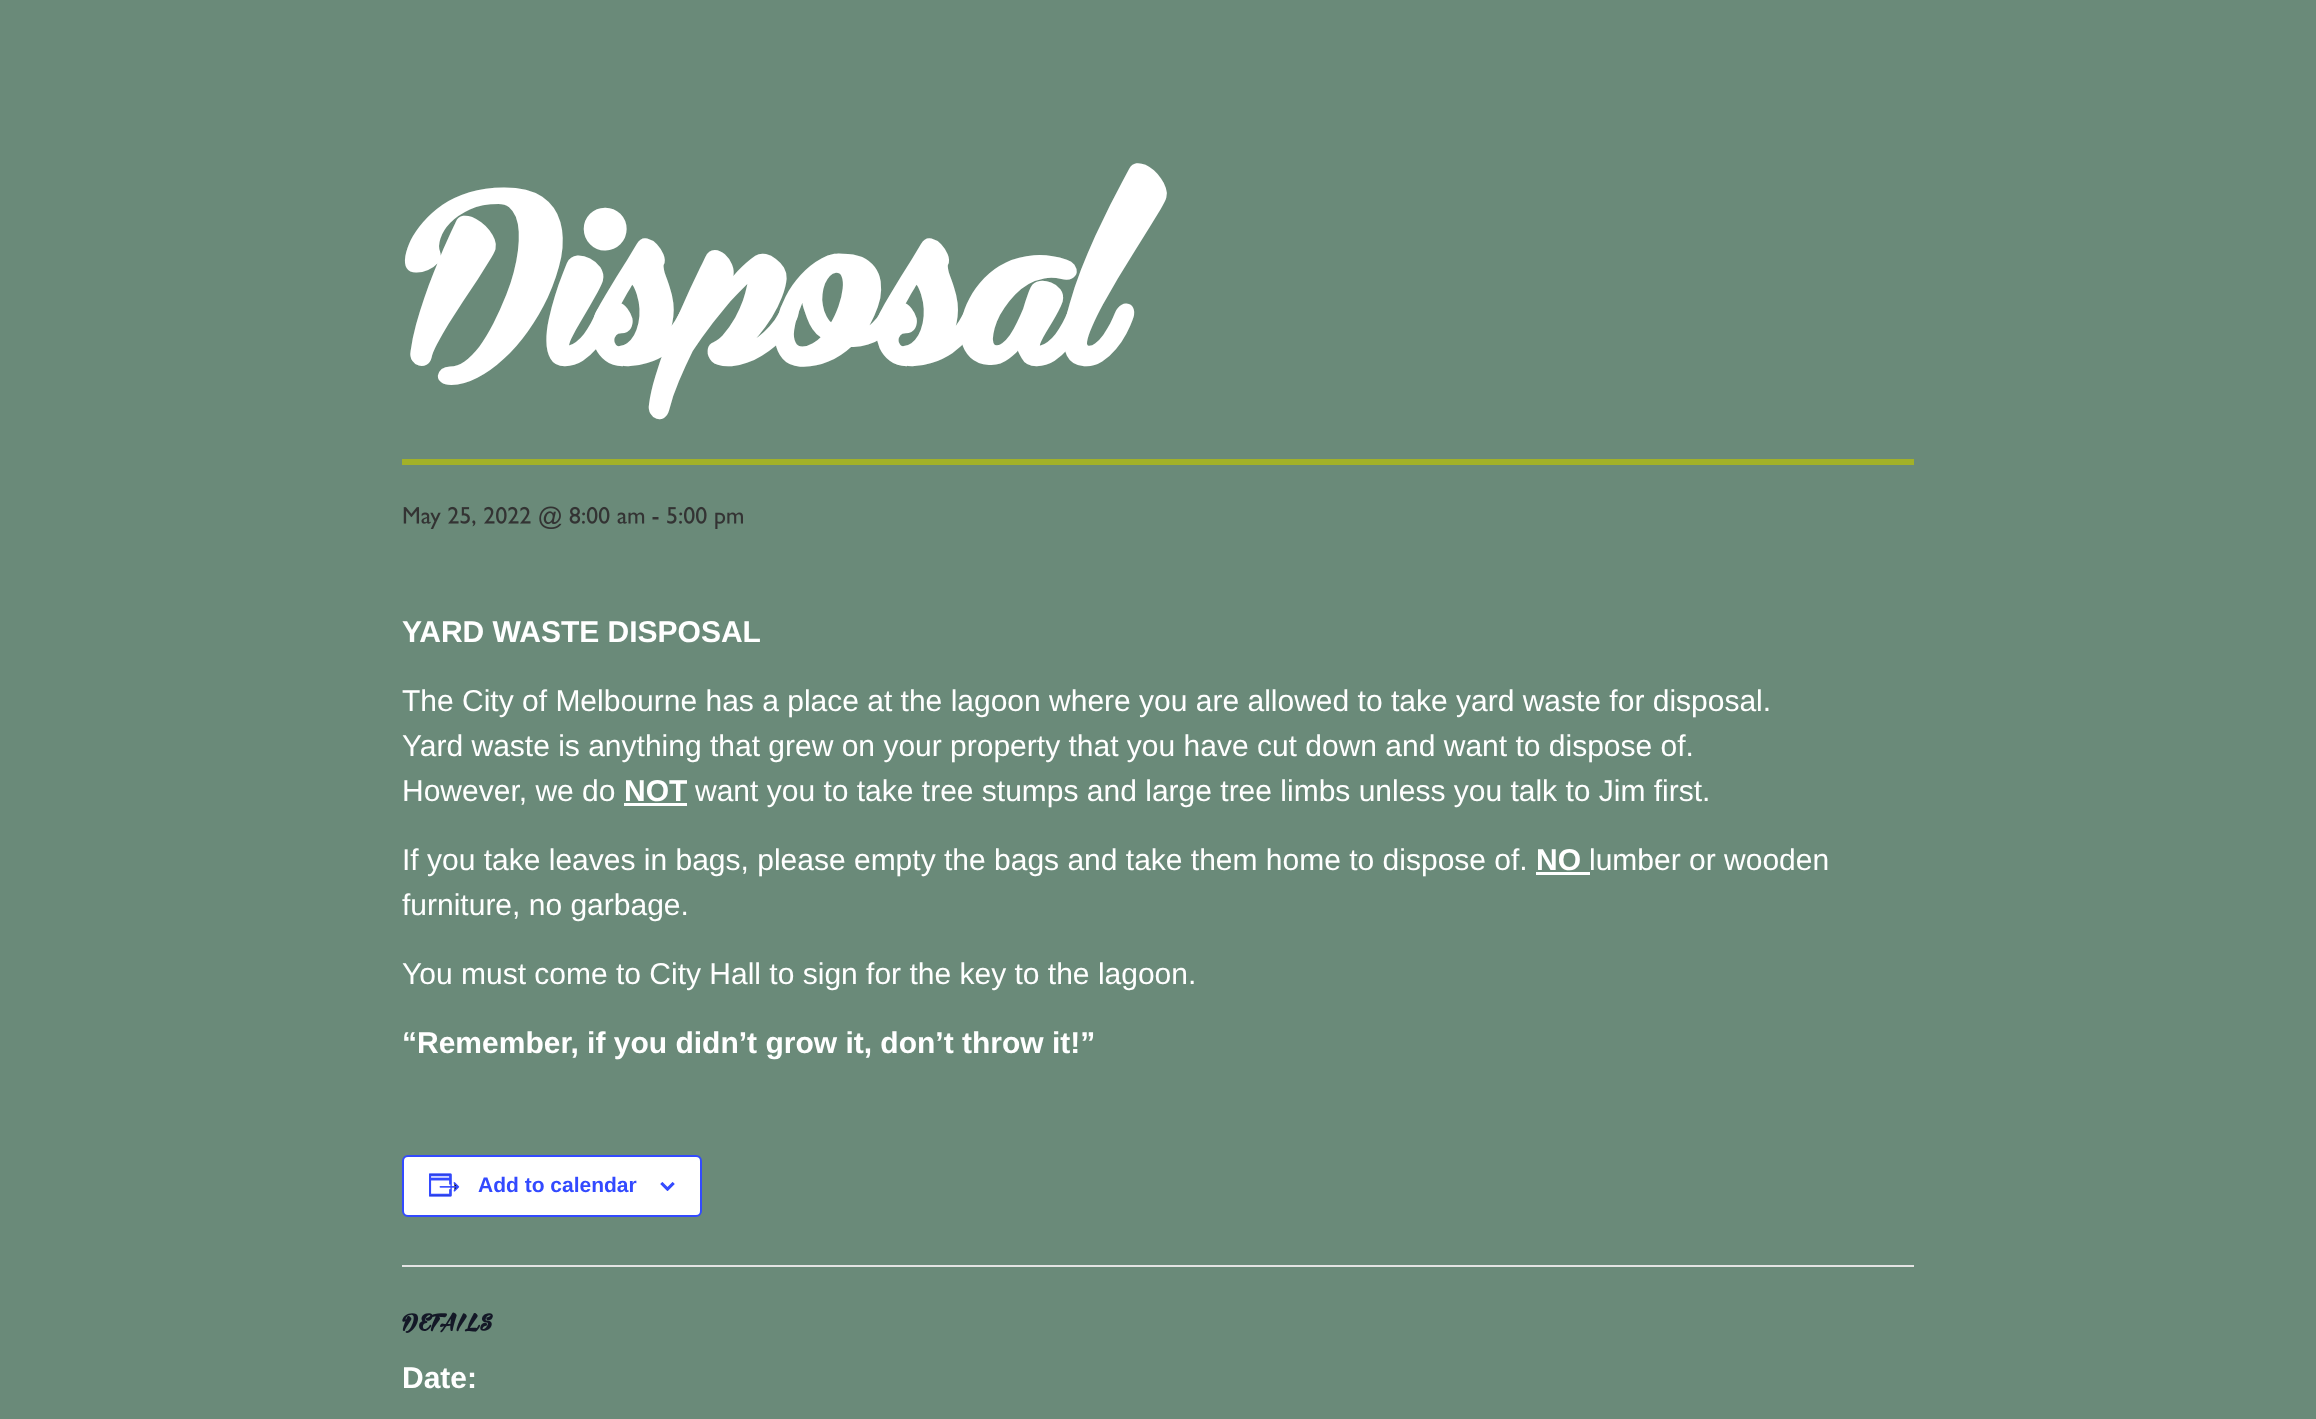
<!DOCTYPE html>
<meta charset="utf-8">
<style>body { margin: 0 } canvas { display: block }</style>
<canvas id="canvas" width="2316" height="1419"></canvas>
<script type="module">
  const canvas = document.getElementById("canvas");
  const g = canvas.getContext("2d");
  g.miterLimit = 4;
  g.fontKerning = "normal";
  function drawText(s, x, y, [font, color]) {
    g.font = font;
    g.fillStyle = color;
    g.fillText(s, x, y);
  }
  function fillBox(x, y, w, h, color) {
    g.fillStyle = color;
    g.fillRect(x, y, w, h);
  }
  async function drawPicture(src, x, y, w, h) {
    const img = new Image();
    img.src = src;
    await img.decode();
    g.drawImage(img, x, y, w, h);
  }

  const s1 = ["bold 210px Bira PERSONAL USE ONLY", "#FFFFFF"];
  const s2 = ["bold 30px Liberation Sans", "#FFFFFF"];
  const s3 = ["30px Liberation Sans", "#FFFFFF"];
  const s4 = ["bold 21px Liberation Sans", "#334AFF"];
  const s5 = ["bold 21px Bira PERSONAL USE ONLY", "#141827"];

  fillBox(0, 0, 2316, 1419, "#6A8A79");
  fillBox(402, 459, 1512, 6, "#A2B128");
  drawText("Disposal", 402, 366, s1);
  await drawPicture("pic1.png", 403, 506, 242, 23);
  g.fillStyle = "#333333";
  g.beginPath();
  g.moveTo(658.5, 517);
  g.lineTo(652.5, 517);
  g.lineTo(652.5, 519.5);
  g.lineTo(658.5, 519.5);
  g.closePath();
  g.fill();
  await drawPicture("pic2.png", 667, 506, 76, 23);
  drawText("YARD WASTE DISPOSAL", 402, 642, s2);
  drawText("The City of Melbourne has a place at the lagoon where you are allowed to take yard waste for disposal.", 402, 711, s3);
  drawText("Yard waste is anything that grew on your property that you have cut down and want to dispose of.", 402, 756, s3);
  drawText("However, we do", 402, 801, s3);
  drawText("NOT", 624, 801, s2);
  fillBox(624, 803, 63, 3, "#FFFFFF");
  drawText("want you to take tree stumps and large tree limbs unless you talk to Jim first.", 695, 801, s3);
  drawText("If you take leaves in bags, please empty the bags and take them home to dispose of.", 402, 870, s3);
  drawText("NO", 1536, 870, s2);
  fillBox(1536, 872, 54, 3, "#FFFFFF");
  drawText("lumber or wooden", 1589, 870, s3);
  drawText("furniture, no garbage.", 402, 915, s3);
  drawText("You must come to City Hall to sign for the key to the lagoon.", 402, 984, s3);
  drawText("“Remember, if you didn’t grow it, don’t throw it!”", 402, 1053, s2);
  g.beginPath();
  g.roundRect(403, 1156, 298, 60, 5);
  g.fill();
  g.strokeStyle = "#334AFF";
  g.lineWidth = 2;
  g.stroke();
  await drawPicture("pic3.png", 429, 1173, 31, 24);
  drawText("Add to calendar", 478, 1192, s4);
  await drawPicture("pic4.png", 660, 1182, 15, 9);
  fillBox(402, 1265, 1512, 2, "#E4E4E4");
  g.letterSpacing = "1.5px";
  drawText("DETAILS", 402, 1331, s5);
  g.letterSpacing = "0px";
  drawText("Date:", 402, 1388, s2);
</script>
